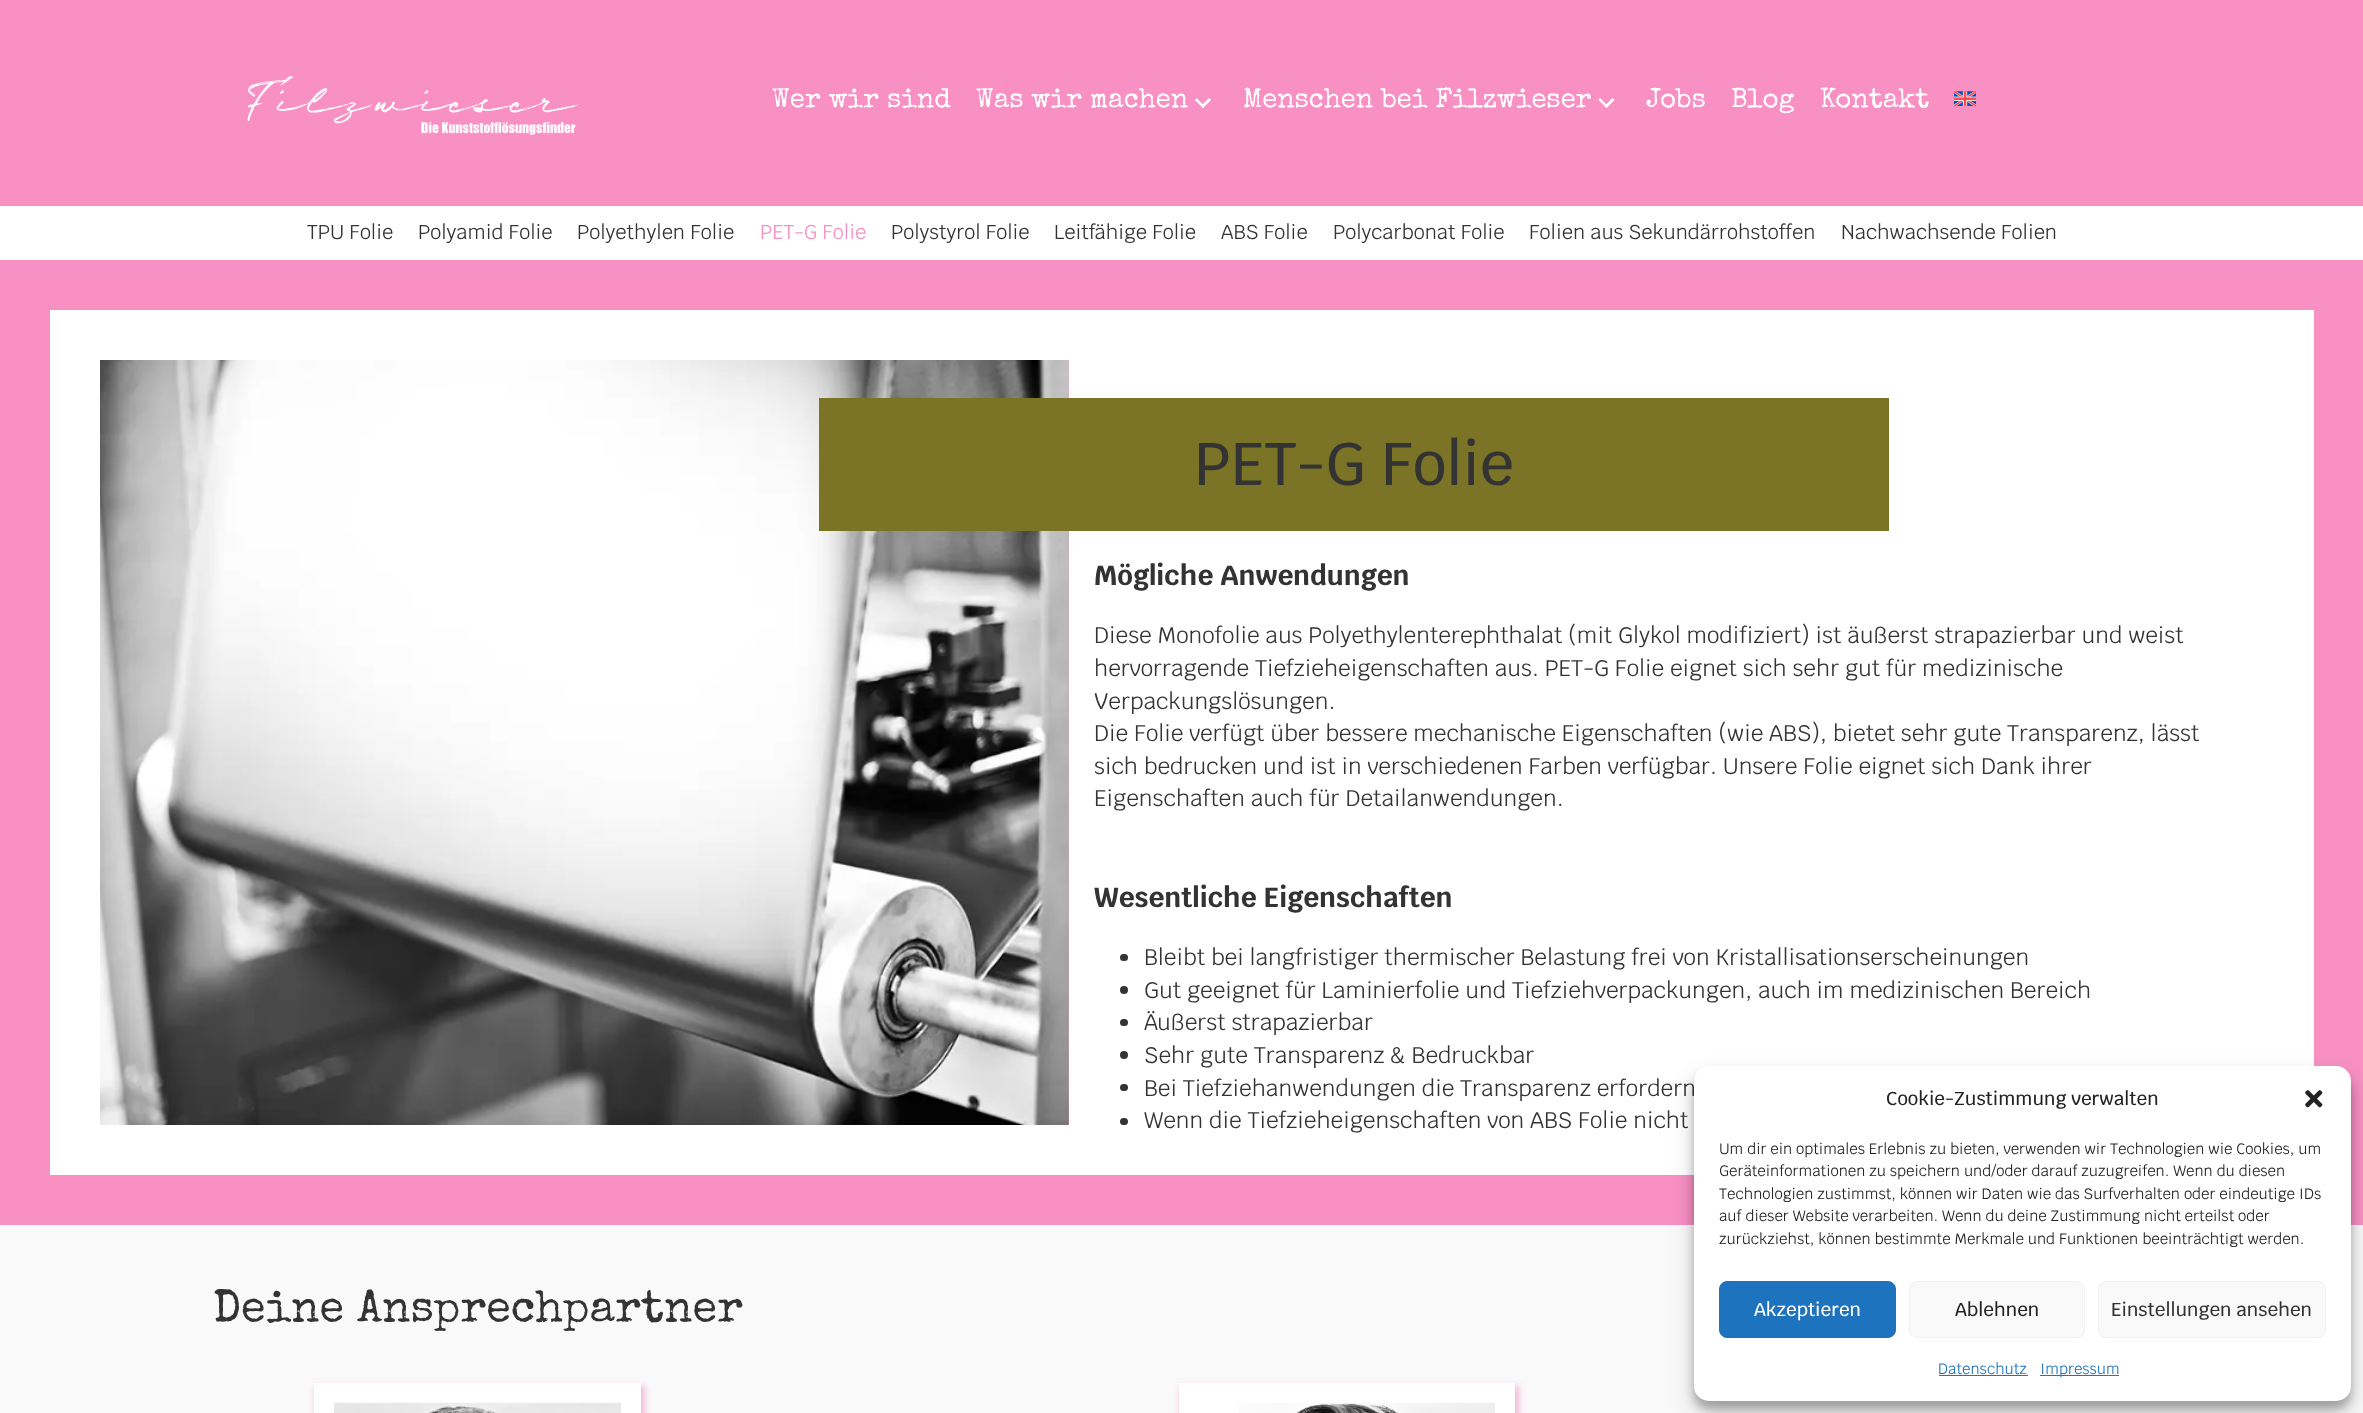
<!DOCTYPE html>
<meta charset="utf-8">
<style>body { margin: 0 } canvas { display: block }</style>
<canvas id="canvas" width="2363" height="1413"></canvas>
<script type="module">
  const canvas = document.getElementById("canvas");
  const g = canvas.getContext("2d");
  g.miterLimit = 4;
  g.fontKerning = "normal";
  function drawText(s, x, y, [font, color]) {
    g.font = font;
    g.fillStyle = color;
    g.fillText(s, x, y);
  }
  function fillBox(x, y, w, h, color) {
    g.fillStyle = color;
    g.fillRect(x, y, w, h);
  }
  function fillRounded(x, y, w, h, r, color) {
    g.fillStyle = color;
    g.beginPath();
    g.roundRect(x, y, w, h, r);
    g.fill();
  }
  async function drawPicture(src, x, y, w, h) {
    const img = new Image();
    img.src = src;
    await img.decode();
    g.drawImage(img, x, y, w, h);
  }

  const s1 = ["27.5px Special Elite", "#FFFFFF"];
  const s2 = ["20px Krub", "#333333"];
  const s3 = ["20px Krub", "#F890C4"];
  const s4 = ["500 60px Krub", "#333333"];
  const s5 = ["bold 27.5px Krub", "#333333"];
  const s6 = ["22.5px Krub", "#333333"];
  const s7 = ["45px Special Elite", "#333333"];
  const s8 = ["500 18.75px Krub", "#222222"];
  const s9 = ["15px Krub", "#222222"];
  const s10 = ["500 18.75px Krub", "#FFFFFF"];
  const s11 = ["500 18.75px Krub", "#333333"];
  const s12 = ["15px Krub", "#1E73BE"];

  fillBox(0, 0, 2363, 1413, "#F890C4");
  await drawPicture("pic1.png", 247, 76, 332, 59);
  drawText("Wer wir sind", 772, 107, s1);
  drawText("Was wir machen", 976, 107, s1);
  g.beginPath();
  g.moveTo(1209, 98);
  g.lineTo(1211, 100);
  g.lineTo(1203, 108);
  g.lineTo(1201, 106);
  g.closePath();
  g.fill();
  g.beginPath();
  g.moveTo(1196.5, 98);
  g.lineTo(1204.5, 106);
  g.lineTo(1203, 108);
  g.lineTo(1195, 100);
  g.closePath();
  g.fill();
  drawText("Menschen bei Filzwieser", 1243, 107, s1);
  g.beginPath();
  g.moveTo(1612.5, 98);
  g.lineTo(1614.5, 100);
  g.lineTo(1606.5, 108);
  g.lineTo(1604.5, 106);
  g.closePath();
  g.fill();
  g.beginPath();
  g.moveTo(1600, 98);
  g.lineTo(1608, 106);
  g.lineTo(1606.5, 108);
  g.lineTo(1598.5, 100);
  g.closePath();
  g.fill();
  drawText("Jobs", 1646, 107, s1);
  drawText("Blog", 1731, 107, s1);
  drawText("Kontakt", 1820, 107, s1);
  await drawPicture("pic2.png", 1954, 91, 22, 15);
  fillBox(0, 206, 2363, 54, "#FFFFFF");
  drawText("TPU Folie", 307, 239, s2);
  drawText("Polyamid Folie", 418, 239, s2);
  drawText("Polyethylen Folie", 577, 239, s2);
  drawText("PET-G Folie", 760, 239, s3);
  drawText("Polystyrol Folie", 891, 239, s2);
  drawText("Leitfähige Folie", 1054, 239, s2);
  drawText("ABS Folie", 1221, 239, s2);
  drawText("Polycarbonat Folie", 1333, 239, s2);
  drawText("Folien aus Sekundärrohstoffen", 1529, 239, s2);
  drawText("Nachwachsende Folien", 1841, 239, s2);
  await drawPicture("pic3.png", 100, 360, 969, 765);
  fillBox(100, 310, 969, 50, "#FFFFFF");
  fillBox(100, 1125, 969, 50, "#FFFFFF");
  fillBox(50, 310, 50, 865, "#FFFFFF");
  fillBox(1069, 310, 1245, 865, "#FFFFFF");
  fillBox(819, 398, 1070, 133, "#7B7325");
  drawText("PET-G Folie", 1194, 485, s4);
  drawText("Mögliche Anwendungen", 1094, 585, s5);
  drawText("Diese Monofolie aus Polyethylenterephthalat (mit Glykol modifiziert) ist äußerst strapazierbar und weist", 1094, 643, s6);
  drawText("hervorragende Tiefzieheigenschaften aus. PET-G Folie eignet sich sehr gut für medizinische", 1094, 676, s6);
  drawText("Verpackungslösungen.", 1094, 709, s6);
  drawText("Die Folie verfügt über bessere mechanische Eigenschaften (wie ABS), bietet sehr gute Transparenz, lässt", 1094, 741, s6);
  drawText("sich bedrucken und ist in verschiedenen Farben verfügbar. Unsere Folie eignet sich Dank ihrer", 1094, 774, s6);
  drawText("Eigenschaften auch für Detailanwendungen.", 1094, 806, s6);
  drawText("Wesentliche Eigenschaften", 1094, 907, s5);
  fillRounded(1120, 954, 8, 7, 3.5, "#333333");
  drawText("Bleibt bei langfristiger thermischer Belastung frei von Kristallisationserscheinungen", 1144, 965, s6);
  g.beginPath();
  g.arc(1124, 990, 4, 0, Math.PI * 2);
  g.fill();
  drawText("Gut geeignet für Laminierfolie und Tiefziehverpackungen, auch im medizinischen Bereich", 1144, 998, s6);
  fillRounded(1120, 1019, 8, 7, 3.5, "#333333");
  drawText("Äußerst strapazierbar", 1144, 1030, s6);
  g.beginPath();
  g.arc(1124, 1055, 4, 0, Math.PI * 2);
  g.fill();
  drawText("Sehr gute Transparenz & Bedruckbar", 1144, 1063, s6);
  fillRounded(1120, 1084, 8, 7, 3.5, "#333333");
  drawText("Bei Tiefziehanwendungen die Transparenz erfordern", 1144, 1096, s6);
  fillRounded(1120, 1118, 8, 7, 3.5, "#333333");
  drawText("Wenn die Tiefzieheigenschaften von ABS Folie nicht", 1144, 1128, s6);
  fillBox(0, 1225, 2363, 188, "#F9F9F9");
  drawText("Deine Ansprechpartner", 213, 1321, s7);
  g.fillStyle = "rgba(230, 0, 127, 0.25)";
  g.filter = "blur(3px)";
  g.beginPath();
  g.rect(315, 1386, 330, 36);
  g.fill();
  g.filter = "none";
  fillBox(314, 1383, 327, 30, "#FFFFFF");
  await drawPicture("pic4.png", 334, 1402, 287, 11);
  g.fillStyle = "rgba(230, 0, 127, 0.25)";
  g.filter = "blur(3px)";
  g.beginPath();
  g.rect(1180, 1386, 339, 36);
  g.fill();
  g.filter = "none";
  fillBox(1179, 1383, 336, 30, "#FFFFFF");
  await drawPicture("pic5.png", 1238, 1402, 257, 11);
  g.fillStyle = "rgba(0, 0, 0, 0.23)";
  g.filter = "blur(4px)";
  g.beginPath();
  g.roundRect(1694, 1074, 657, 335, 15);
  g.fill();
  g.filter = "none";
  g.fillStyle = "rgba(0, 0, 0, 0.19)";
  g.filter = "blur(12.5px)";
  g.beginPath();
  g.roundRect(1694, 1079, 657, 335, 15);
  g.fill();
  g.filter = "none";
  fillRounded(1694, 1066, 657, 335, 15, "#FFFFFF");
  drawText("Cookie-Zustimmung verwalten", 1886, 1105, s8);
  await drawPicture("pic6.png", 2305, 1090, 18, 18);
  drawText("Um dir ein optimales Erlebnis zu bieten, verwenden wir Technologien wie Cookies, um", 1719, 1154, s9);
  drawText("Geräteinformationen zu speichern und/oder darauf zuzugreifen. Wenn du diesen", 1719, 1176, s9);
  drawText("Technologien zustimmst, können wir Daten wie das Surfverhalten oder eindeutige IDs", 1719, 1199, s9);
  drawText("auf dieser Website verarbeiten. Wenn du deine Zustimmung nicht erteilst oder", 1719, 1221, s9);
  drawText("zurückziehst, können bestimmte Merkmale und Funktionen beeinträchtigt werden.", 1719, 1244, s9);
  g.fillStyle = "#1E73BE";
  g.beginPath();
  g.roundRect(1719.5, 1281.5, 176, 56, 7.5);
  g.fill();
  g.strokeStyle = "#1E73BE";
  g.stroke();
  drawText("Akzeptieren", 1754, 1316, s10);
  g.fillStyle = "#F9F9F9";
  g.beginPath();
  g.roundRect(1909.5, 1281.5, 175, 56, 7.5);
  g.fill();
  g.strokeStyle = "#F2F2F2";
  g.stroke();
  drawText("Ablehnen", 1955, 1316, s8);
  g.fillStyle = "#F9F9F9";
  g.beginPath();
  g.roundRect(2098.5, 1281.5, 227, 56, 7.5);
  g.fill();
  g.stroke();
  drawText("Einstellungen ansehen", 2111, 1316, s11);
  drawText("Datenschutz", 1938, 1374, s12);
  fillBox(1939, 1375, 89, 1, "#1E73BE");
  fillBox(2040, 1375, 79, 1, "#1E73BE");
  drawText("Impressum", 2040, 1374, s12);
</script>
